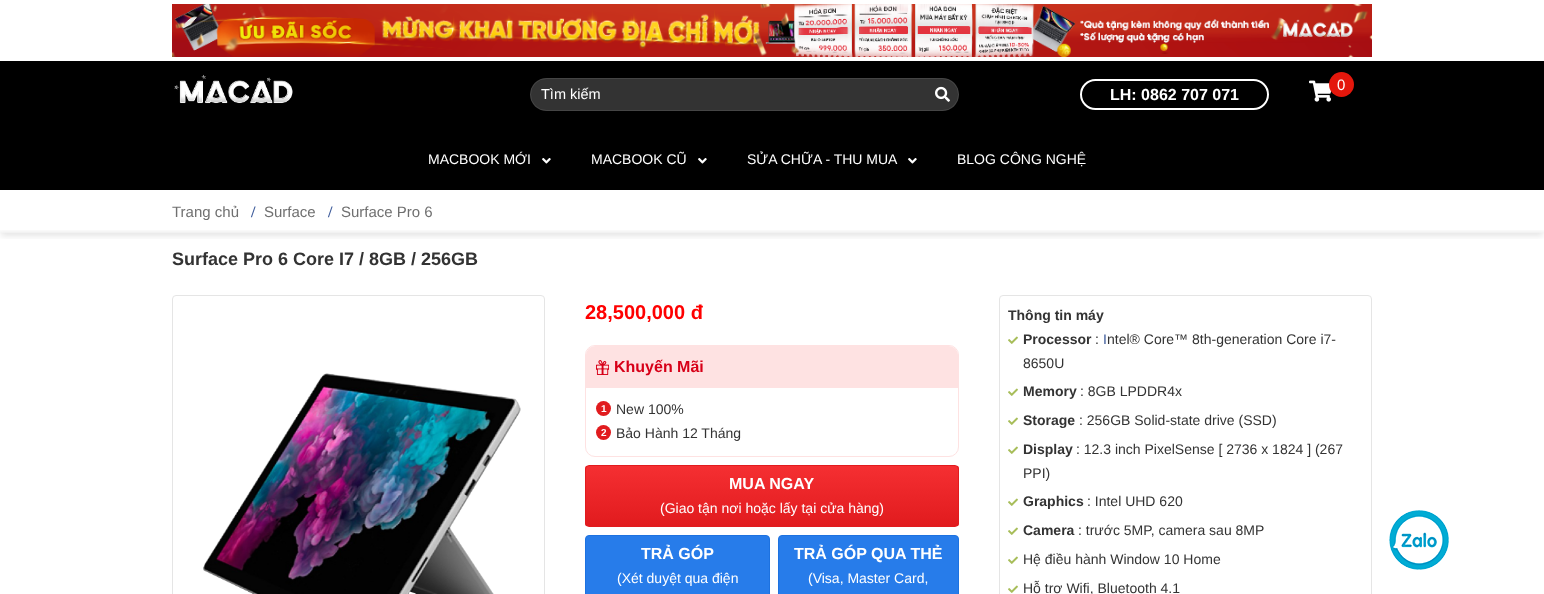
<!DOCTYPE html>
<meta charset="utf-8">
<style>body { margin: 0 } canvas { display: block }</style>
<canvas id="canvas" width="1544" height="594"></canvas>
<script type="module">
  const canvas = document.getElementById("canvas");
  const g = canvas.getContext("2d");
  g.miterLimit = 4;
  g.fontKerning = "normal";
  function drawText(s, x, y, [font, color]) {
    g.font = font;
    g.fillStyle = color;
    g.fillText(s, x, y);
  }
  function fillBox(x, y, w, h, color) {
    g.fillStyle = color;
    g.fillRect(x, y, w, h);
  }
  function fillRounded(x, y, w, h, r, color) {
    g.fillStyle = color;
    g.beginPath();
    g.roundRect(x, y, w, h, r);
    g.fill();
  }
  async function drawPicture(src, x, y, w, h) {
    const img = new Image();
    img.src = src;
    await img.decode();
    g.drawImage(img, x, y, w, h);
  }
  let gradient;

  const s1 = ["15px Liberation Sans", "#FFFFFF"];
  const s2 = ["14.5px Liberation Sans", "#FFFFFF"];
  const s3 = ["bold 16px Liberation Sans", "#FFFFFF"];
  const s4 = ["14px Liberation Sans", "#FFFFFF"];
  const s5 = ["15px Liberation Sans", "#707070"];
  const s6 = ["bold 16px Liberation Serif", "#3B5999"];
  const s7 = ["bold 18px Liberation Sans", "#333333"];
  const s8 = ["bold 20px Liberation Sans", "#FF0000"];
  const s9 = ["bold 16px Liberation Sans", "#D70018"];
  const s10 = ["bold 10px Liberation Sans", "#FFFFFF"];
  const s11 = ["14px Liberation Sans", "#333333"];
  const s12 = ["bold 14px Liberation Sans", "#333333"];
  const s13 = ["14px Liberation Sans", "#3B5999"];

  fillBox(0, 0, 1544, 594, "#FFFFFF");
  await drawPicture("pic1.png", 172, 4, 1200, 53);
  fillBox(0, 61, 1544, 129, "#000000");
  await drawPicture("pic2.png", 174, 74, 119, 30);
  await drawPicture("pic3.png", 1309, 80, 23, 22);
  g.fillStyle = "#E4170C";
  g.beginPath();
  g.arc(1341.5, 84.5, 12.5, 0, Math.PI * 2);
  g.fill();
  drawText("0", 1337, 90, s1);
  fillRounded(530, 78, 429, 33, 16.5, "#333333");
  g.beginPath();
  g.roundRect(530.5, 78.5, 428, 32, 16);
  g.strokeStyle = "rgba(255, 255, 255, 0.09)";
  g.stroke();
  drawText("Tìm kiếm", 541, 99, s2);
  await drawPicture("pic4.png", 935, 86, 15, 16);
  g.beginPath();
  g.roundRect(1081, 80, 187, 29, 14.5);
  g.strokeStyle = "#FFFFFF";
  g.lineWidth = 2;
  g.stroke();
  drawText("LH: 0862 707 071", 1110, 100, s3);
  drawText("MACBOOK MỚI", 428, 164, s4);
  await drawPicture("pic5.png", 542, 158, 9, 6);
  drawText("MACBOOK CŨ", 591, 164, s4);
  await drawPicture("pic5.png", 698, 158, 9, 6);
  drawText("SỬA CHỮA - THU MUA", 747, 164, s4);
  await drawPicture("pic5.png", 908, 158, 9, 6);
  drawText("BLOG CÔNG NGHỆ", 957, 164, s4);
  g.save();
  g.beginPath();
  g.rect(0, 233, 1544, 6);
  g.clip();
  g.fillStyle = "rgba(0, 0, 0, 0.1)";
  g.filter = "blur(3px)";
  g.beginPath();
  g.rect(1, 203, 1542, 33);
  g.fill();
  g.filter = "none";
  g.restore();
  drawText("Trang chủ", 172, 217, s5);
  drawText("/", 251, 217, s6);
  drawText("Surface", 264, 217, s5);
  drawText("/", 328, 217, s6);
  drawText("Surface Pro 6", 341, 217, s5);
  g.save();
  g.beginPath();
  g.rect(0, 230, 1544, 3);
  g.clip();
  g.fillStyle = "rgba(60, 64, 67, 0.15)";
  g.filter = "blur(3px)";
  g.beginPath();
  g.rect(-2, 233, 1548, 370);
  g.fill();
  g.filter = "none";
  g.restore();
  drawText("Surface Pro 6 Core I7 / 8GB / 256GB", 172, 265, s7);
  g.beginPath();
  g.roundRect(172.5, 295.5, 372, 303, 3.5);
  g.strokeStyle = "#E5E5E5";
  g.lineWidth = 1;
  g.stroke();
  await drawPicture("pic6.png", 203, 373, 318, 221);
  drawText("28,500,000 đ", 585, 319, s8);
  g.beginPath();
  g.roundRect(585.5, 345.5, 373, 111, 9.5);
  g.strokeStyle = "#FEE2E2";
  g.stroke();
  g.fillStyle = "#FEE2E2";
  g.beginPath();
  g.roundRect(586, 346, 372, 42, [9, 9, 0, 0]);
  g.fill();
  await drawPicture("pic7.png", 596, 360, 13, 15);
  drawText("Khuyến Mãi", 614, 372, s9);
  g.fillStyle = "#E11B1E";
  g.beginPath();
  g.arc(603.5, 408.5, 7.5, 0, Math.PI * 2);
  g.fill();
  drawText("1", 601, 412, s10);
  drawText("New 100%", 616, 414, s11);
  g.fillStyle = "#E11B1E";
  g.beginPath();
  g.arc(603.5, 432.5, 7.5, 0, Math.PI * 2);
  g.fill();
  drawText("2", 601, 436, s10);
  drawText("Bảo Hành 12 Tháng", 616, 438, s11);
  g.save();
  g.beginPath();
  g.roundRect(585, 465, 374, 62, 4);
  g.clip();
  gradient = g.createLinearGradient(772, 466, 772, 526);
  gradient.addColorStop(0, "#F52F32");
  gradient.addColorStop(1, "#E11B1E");
  g.fillStyle = gradient;
  g.fillRect(585, 466, 374, 60);
  g.restore();
  g.beginPath();
  g.roundRect(585.5, 465.5, 373, 61, 3.5);
  g.strokeStyle = "#E11B1E";
  g.stroke();
  drawText("MUA NGAY", 729, 489, s3);
  drawText("(Giao tận nơi hoặc lấy tại cửa hàng)", 660, 513, s4);
  g.fillStyle = "#277CEA";
  g.beginPath();
  g.roundRect(585.5, 535.5, 184, 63, 3.5);
  g.fill();
  g.strokeStyle = "#1D72E0";
  g.stroke();
  drawText("TRẢ GÓP", 641, 559, s3);
  drawText("(Xét duyệt qua điện", 617, 583, s4);
  g.fillStyle = "#277CEA";
  g.beginPath();
  g.roundRect(778.5, 535.5, 180, 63, 3.5);
  g.fill();
  g.stroke();
  drawText("TRẢ GÓP QUA THẺ", 794, 559, s3);
  drawText("(Visa, Master Card,", 808, 583, s4);
  g.beginPath();
  g.roundRect(999.5, 295.5, 372, 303, 3.5);
  g.strokeStyle = "#E5E5E5";
  g.stroke();
  drawText("Thông tin máy", 1008, 320, s12);
  await drawPicture("pic8.png", 1008, 336, 10, 8);
  drawText("Processor", 1023, 344, s12);
  drawText(":", 1095, 344, s11);
  drawText("I", 1103, 344, s13);
  drawText("ntel® Core™ 8th-generation Core i7-", 1107, 344, s11);
  drawText("8650U", 1023, 368, s11);
  await drawPicture("pic8.png", 1008, 388, 10, 8);
  drawText("Memory", 1023, 396, s12);
  drawText(": 8GB LPDDR4x", 1080, 396, s11);
  await drawPicture("pic8.png", 1008, 417, 10, 8);
  drawText("Storage", 1023, 425, s12);
  drawText(": 256GB Solid-state drive (SSD)", 1079, 425, s11);
  await drawPicture("pic8.png", 1008, 446, 10, 8);
  drawText("Display", 1023, 454, s12);
  drawText(": 12.3 inch PixelSense [ 2736 x 1824 ] (267", 1076, 454, s11);
  drawText("PPI)", 1023, 478, s11);
  await drawPicture("pic8.png", 1008, 498, 10, 8);
  drawText("Graphics", 1023, 506, s12);
  drawText(": Intel UHD 620", 1087, 506, s11);
  await drawPicture("pic8.png", 1008, 527, 10, 8);
  drawText("Camera", 1023, 535, s12);
  drawText(": trước 5MP, camera sau 8MP", 1078, 535, s11);
  await drawPicture("pic8.png", 1008, 556, 10, 8);
  drawText("Hệ điều hành Window 10 Home", 1023, 564, s11);
  await drawPicture("pic8.png", 1008, 585, 10, 8);
  drawText("Hỗ trợ Wifi, Bluetooth 4.1", 1023, 593, s11);
  await drawPicture("pic9.png", 1389, 510, 60, 60);
</script>
